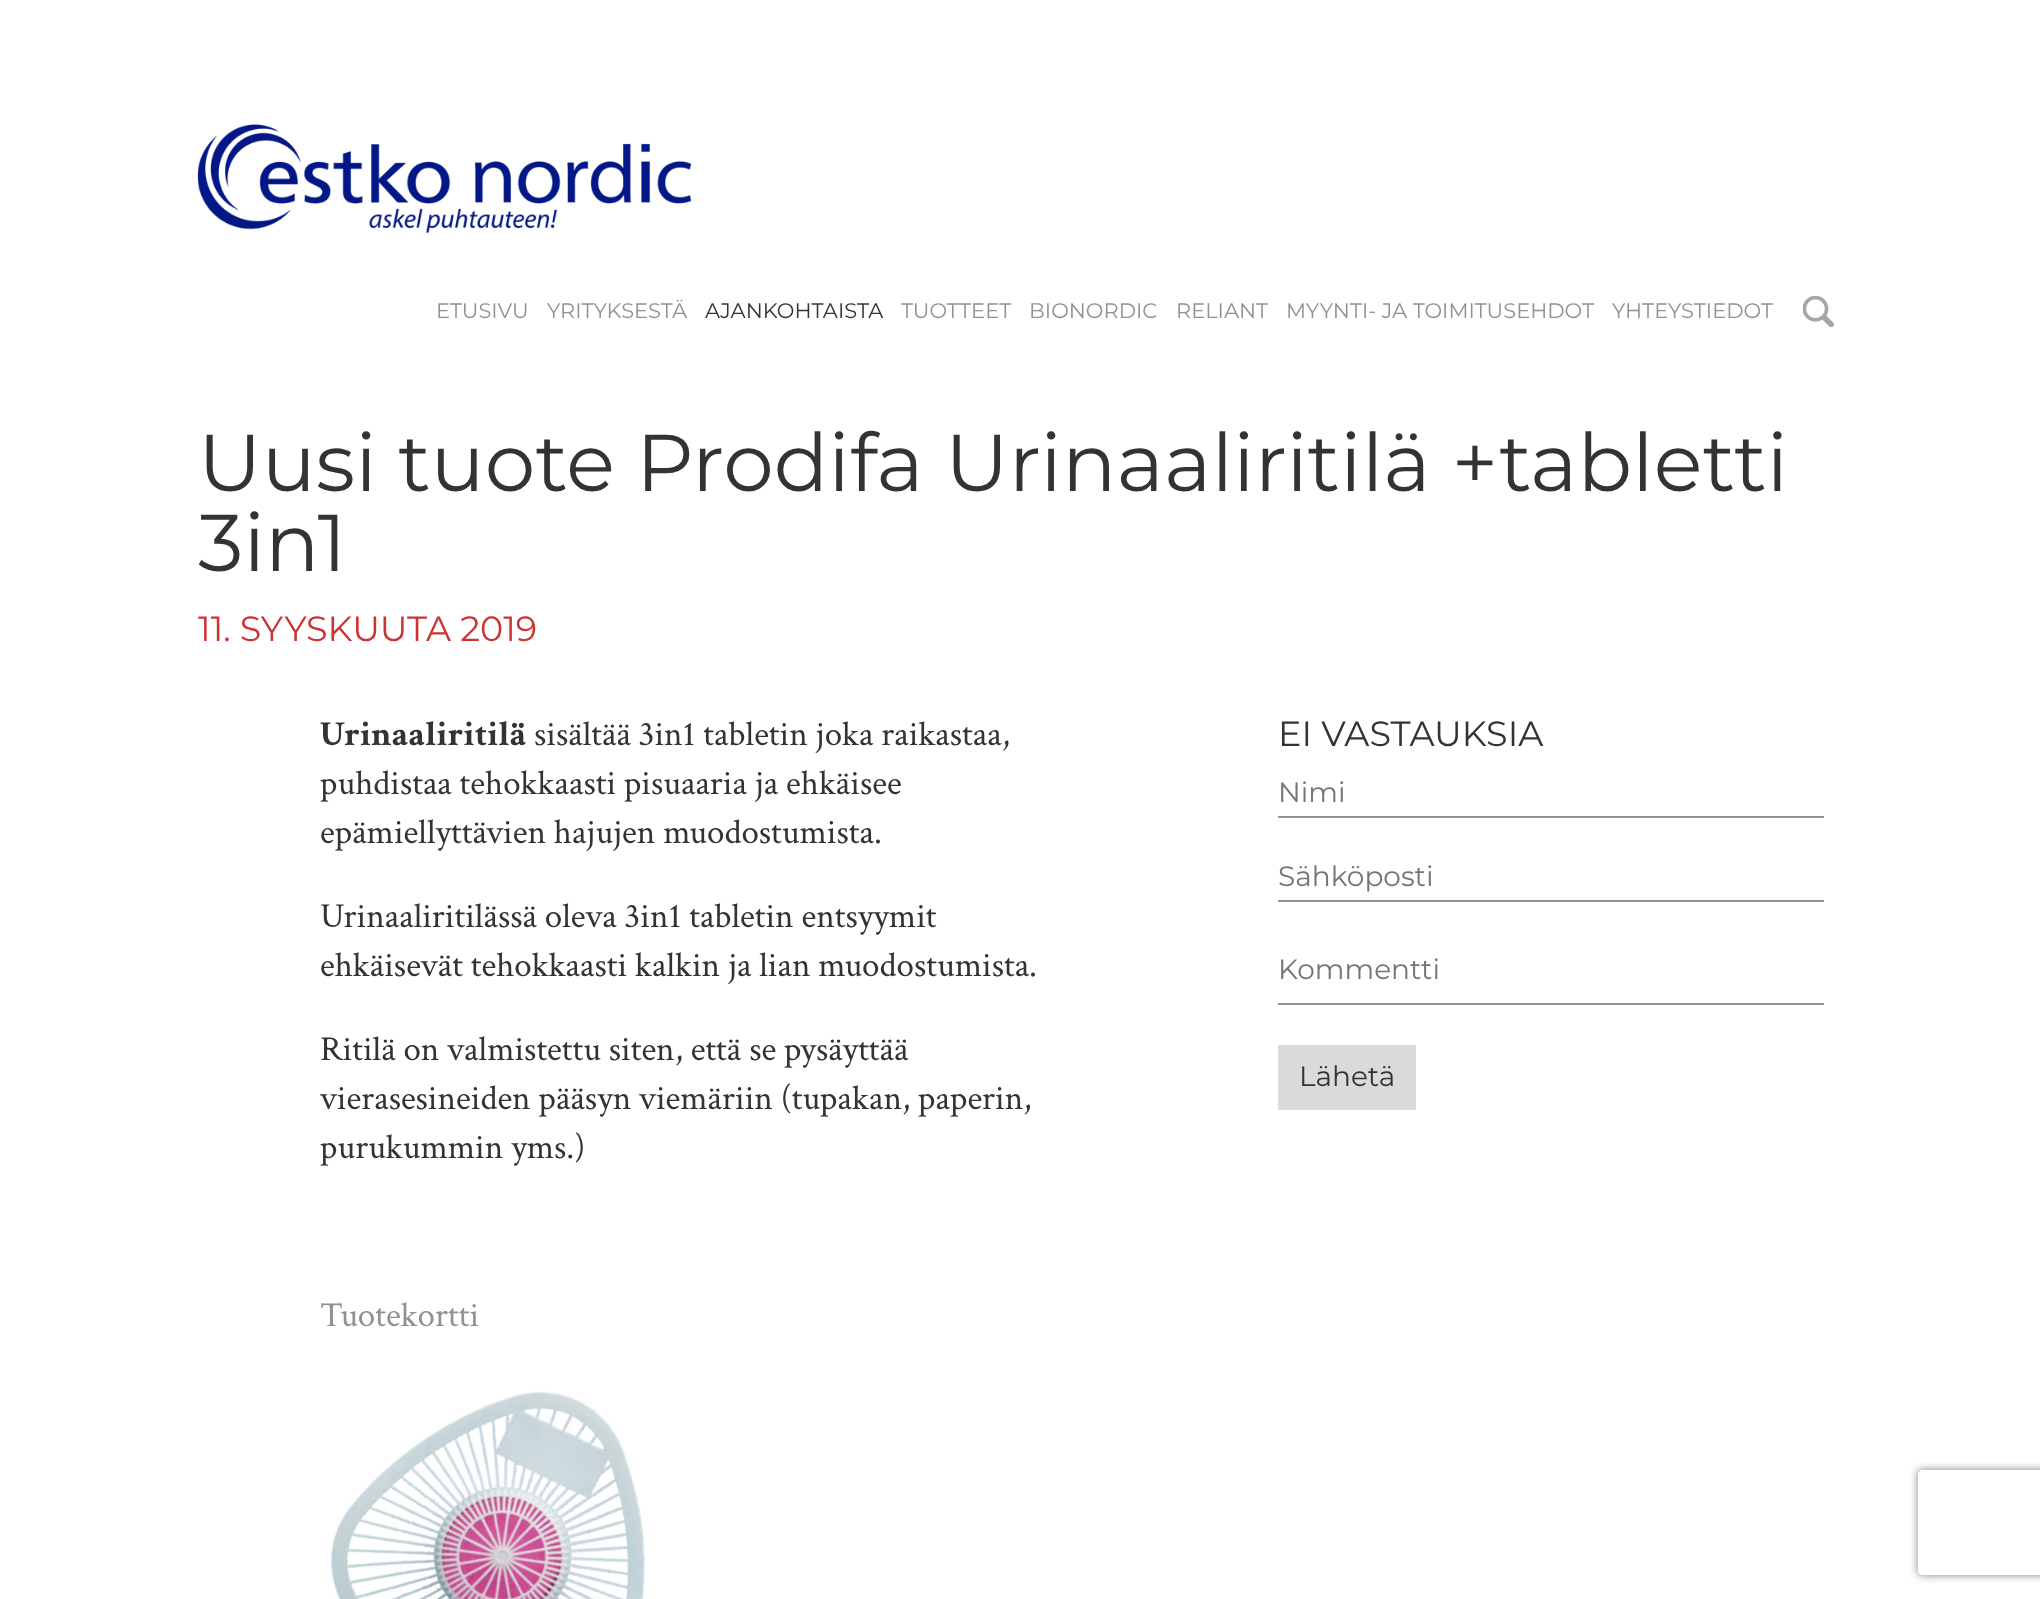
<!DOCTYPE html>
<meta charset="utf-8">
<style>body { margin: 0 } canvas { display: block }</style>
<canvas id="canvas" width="2040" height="1599"></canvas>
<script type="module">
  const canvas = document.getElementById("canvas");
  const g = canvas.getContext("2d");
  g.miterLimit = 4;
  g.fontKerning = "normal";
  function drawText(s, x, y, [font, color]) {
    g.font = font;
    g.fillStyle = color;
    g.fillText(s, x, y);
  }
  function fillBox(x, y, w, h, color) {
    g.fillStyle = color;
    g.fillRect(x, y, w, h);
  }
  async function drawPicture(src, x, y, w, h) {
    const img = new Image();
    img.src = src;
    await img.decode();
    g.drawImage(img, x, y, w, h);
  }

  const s1 = ["21px Montserrat", "#919191"];
  const s2 = ["21px Montserrat", "#333333"];
  const s3 = ["80.5px Montserrat", "#333333"];
  const s4 = ["35px Montserrat", "#CC3333"];
  const s5 = ["bold 35px Crimson Text", "#333333"];
  const s6 = ["35px Crimson Text", "#333333"];
  const s7 = ["35px Crimson Text", "#919191"];
  const s8 = ["35px Montserrat", "#333333"];
  const s9 = ["28px Montserrat", "#757575"];
  const s10 = ["28px Montserrat", "#333333"];

  fillBox(0, 0, 2040, 1599, "#FFFFFF");
  await drawPicture("pic1.png", 197, 124, 495, 109);
  drawText("ETUSIVU", 436, 318, s1);
  drawText("YRITYKSESTÄ", 547, 318, s1);
  drawText("AJANKOHTAISTA", 705, 318, s2);
  drawText("TUOTTEET", 901, 318, s1);
  drawText("BIONORDIC", 1029, 318, s1);
  drawText("RELIANT", 1176, 318, s1);
  drawText("MYYNTI- JA TOIMITUSEHDOT", 1286, 318, s1);
  drawText("YHTEYSTIEDOT", 1612, 318, s1);
  await drawPicture("pic2.png", 1803, 296, 31, 31);
  drawText("Uusi tuote Prodifa Urinaaliritilä +tabletti", 198, 491, s3);
  drawText("3in1", 198, 571, s3);
  drawText("11. SYYSKUUTA 2019", 198, 641, s4);
  drawText("Urinaaliritilä", 320, 745, s5);
  drawText("sisältää 3in1 tabletin joka raikastaa,", 534, 745, s6);
  drawText("puhdistaa tehokkaasti pisuaaria ja ehkäisee", 320, 794, s6);
  drawText("epämiellyttävien hajujen muodostumista.", 320, 843, s6);
  drawText("Urinaaliritilässä oleva 3in1 tabletin entsyymit", 320, 927, s6);
  drawText("ehkäisevät tehokkaasti kalkin ja lian muodostumista.", 320, 976, s6);
  drawText("Ritilä on valmistettu siten, että se pysäyttää", 320, 1060, s6);
  drawText("vierasesineiden pääsyn viemäriin (tupakan, paperin,", 320, 1109, s6);
  drawText("purukummin yms.)", 320, 1158, s6);
  drawText("Tuotekortti", 320, 1326, s7);
  await drawPicture("pic3.png", 330, 1391, 316, 208);
  drawText("EI VASTAUKSIA", 1278, 746, s8);
  fillBox(1278, 816, 546, 2, "#919191");
  drawText("Nimi", 1278, 802, s9);
  fillBox(1278, 900, 546, 2, "#919191");
  drawText("Sähköposti", 1278, 886, s9);
  fillBox(1278, 1003, 546, 2, "#919191");
  drawText("Kommentti", 1278, 979, s9);
  fillBox(1278, 1045, 138, 65, "#DADADA");
  drawText("Lähetä", 1299, 1086, s10);
  g.save();
  g.beginPath();
  g.moveTo(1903, 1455);
  g.lineTo(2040, 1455);
  g.lineTo(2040, 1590);
  g.lineTo(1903, 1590);
  g.closePath();
  g.moveTo(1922, 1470);
  g.lineTo(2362, 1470);
  g.bezierCurveTo(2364, 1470, 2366, 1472, 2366, 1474);
  g.lineTo(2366, 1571);
  g.bezierCurveTo(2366, 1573, 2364, 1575, 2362, 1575);
  g.lineTo(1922, 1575);
  g.bezierCurveTo(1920, 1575, 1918, 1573, 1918, 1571);
  g.lineTo(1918, 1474);
  g.bezierCurveTo(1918, 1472, 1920, 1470, 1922, 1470);
  g.closePath();
  g.clip("evenodd");
  g.fillStyle = "#808080";
  g.filter = "blur(4.5px)";
  g.beginPath();
  g.roundRect(1918, 1470, 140, 105, 4);
  g.fill();
  g.filter = "none";
  g.restore();
</script>
